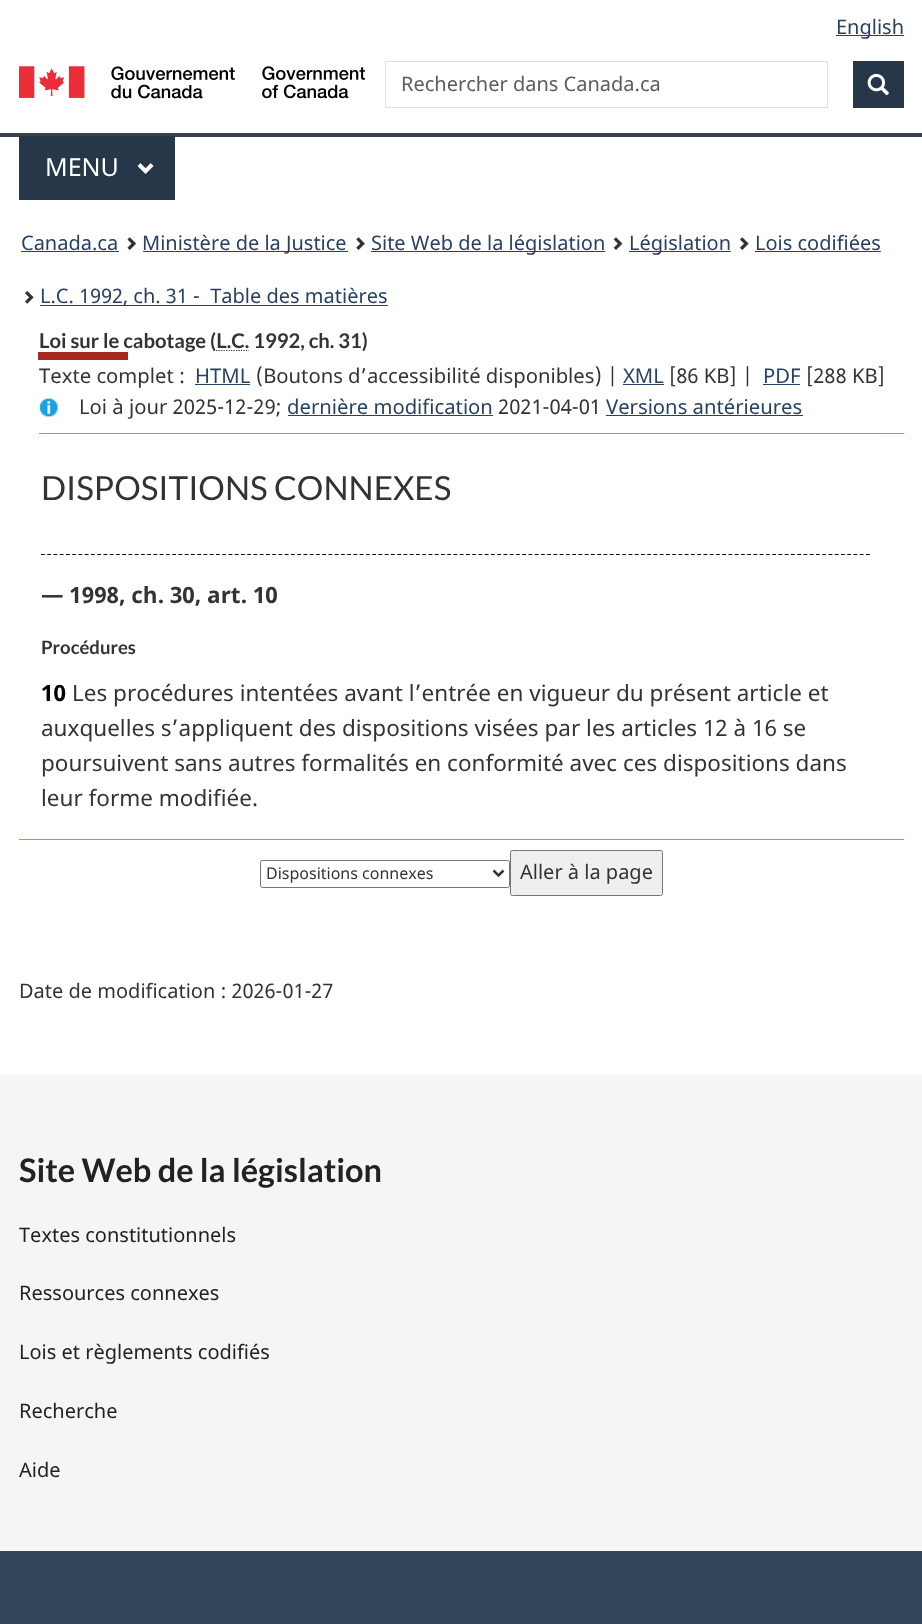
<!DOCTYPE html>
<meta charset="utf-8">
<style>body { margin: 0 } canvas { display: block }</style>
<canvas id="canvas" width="922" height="1624"></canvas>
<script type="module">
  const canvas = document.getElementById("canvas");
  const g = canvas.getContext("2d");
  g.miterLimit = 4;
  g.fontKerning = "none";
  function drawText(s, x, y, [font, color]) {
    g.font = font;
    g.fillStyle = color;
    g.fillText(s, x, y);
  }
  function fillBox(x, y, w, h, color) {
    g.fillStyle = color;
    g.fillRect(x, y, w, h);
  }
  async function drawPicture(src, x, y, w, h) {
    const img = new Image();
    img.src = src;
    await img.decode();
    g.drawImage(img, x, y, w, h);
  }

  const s1 = ["20px Noto Sans", "#284162"];
  const s2 = ["20px Noto Sans", "#5C5C5C"];
  const s3 = ["25px Noto Sans", "#FFFFFF"];
  const s4 = ["bold 20.25px Lato", "#333333"];
  const s5 = ["20.25px Noto Sans", "#333333"];
  const s6 = ["20.25px Noto Sans", "#284162"];
  const s7 = ["33.25px Lato", "#333333"];
  const s8 = ["bold 22.5px Noto Sans", "#333333"];
  const s9 = ["bold 18.5px Lato", "#333333"];
  const s10 = ["bold 22.5px Noto Sans", "#000000"];
  const s11 = ["22.5px Noto Sans", "#333333"];
  const s12 = ["16px Noto Sans", "#333333"];
  const s13 = ["20px Noto Sans", "#333333"];
  const s14 = ["bold 32.5px Lato", "#222222"];
  const s15 = ["20px Noto Sans", "#222222"];

  fillBox(0, 0, 922, 1624, "#FFFFFF");
  fillBox(836, 35, 68, 1, "#284162");
  drawText("English", 836, 34, s1);
  await drawPicture("pic1.png", 19, 66, 346, 33);
  g.strokeStyle = "#E0E0E0";
  g.strokeRect(385.5, 61.5, 442, 46);
  drawText("Rechercher dans Canada.ca", 401, 91, s2);
  fillBox(853, 61, 51, 47, "#26374A");
  await drawPicture("pic2.png", 867, 73, 22, 23);
  fillBox(0, 133, 922, 4, "#38414D");
  fillBox(19, 136, 156, 64, "#26374A");
  drawText("MENU", 45, 176, s3);
  await drawPicture("pic3.png", 137, 163, 17, 11);
  drawText("Canada.ca", 21, 250, s1);
  fillBox(21, 251, 98, 1, "#284162");
  await drawPicture("pic4.png", 127, 237, 10, 13);
  fillBox(143, 251, 205, 1, "#284162");
  drawText("Ministère de la Justice", 142, 250, s1);
  await drawPicture("pic5.png", 356, 237, 9, 13);
  fillBox(371, 251, 234, 1, "#284162");
  drawText("Site Web de la législation", 371, 250, s1);
  await drawPicture("pic6.png", 613, 237, 10, 13);
  fillBox(629, 251, 102, 1, "#284162");
  drawText("Législation", 629, 250, s1);
  await drawPicture("pic7.png", 740, 237, 9, 13);
  drawText("Lois codifiées", 755, 250, s1);
  fillBox(755, 251, 126, 1, "#284162");
  await drawPicture("pic8.png", 25, 291, 9, 13);
  g.beginPath();
  g.moveTo(40, 305.5);
  g.lineTo(74, 305.5);
  g.strokeStyle = "#284162";
  g.lineWidth = 1.2;
  g.setLineDash([1.25, 1.25]);
  g.stroke();
  fillBox(40, 305, 348, 1, "#284162");
  drawText("L.C. 1992, ch. 31 -  Table des matières", 40, 303, s1);
  fillBox(38, 352, 90, 8, "#A62A1E");
  drawText("Loi sur le cabotage (L.C. 1992, ch. 31)", 39, 348, s4);
  g.beginPath();
  g.moveTo(216, 350.5);
  g.lineTo(249, 350.5);
  g.strokeStyle = "#333333";
  g.stroke();
  drawText("Texte complet :", 39, 383, s5);
  drawText("HTML", 195, 383, s6);
  fillBox(195, 384, 55, 1, "#284162");
  drawText("(Boutons d’accessibilité disponibles) |", 256, 383, s5);
  drawText("XML", 623, 383, s6);
  fillBox(623, 384, 41, 1, "#284162");
  drawText("[86 KB] |", 669, 383, s5);
  drawText("PDF", 763, 383, s6);
  fillBox(763, 384, 37, 1, "#284162");
  drawText("[288 KB]", 806, 383, s5);
  await drawPicture("pic9.png", 39, 397, 20, 21);
  drawText("Loi à jour 2025-12-29;", 79, 414, s5);
  drawText("dernière modification", 287, 414, s6);
  fillBox(288, 415, 205, 1, "#284162");
  drawText("2021-04-01", 498, 414, s5);
  drawText("Versions antérieures", 606, 414, s6);
  fillBox(606, 415, 197, 1, "#284162");
  fillBox(39, 433, 865, 1, "#CC9900");
  drawText("DISPOSITIONS CONNEXES", 41, 500, s7);
  g.beginPath();
  g.moveTo(41, 554.5);
  g.lineTo(870, 554.5);
  g.strokeStyle = "#000000";
  g.setLineDash([3.75, 2.5]);
  g.stroke();
  drawText("— 1998, ch. 30, art. 10", 41, 603, s8);
  drawText("Procédures", 41, 654, s9);
  drawText("10", 41, 701, s10);
  drawText("Les procédures intentées avant l’entrée en vigueur du présent article et", 72, 701, s11);
  drawText("auxquelles s’appliquent des dispositions visées par les articles 12 à 16 se", 41, 736, s11);
  drawText("poursuivent sans autres formalités en conformité avec ces dispositions dans", 41, 771, s11);
  drawText("leur forme modifiée.", 41, 806, s11);
  fillBox(19, 839, 885, 1, "#CC9900");
  g.beginPath();
  g.roundRect(260.5, 860.5, 249, 27, 2);
  g.strokeStyle = "#767676";
  g.lineWidth = 1;
  g.setLineDash([]);
  g.stroke();
  g.beginPath();
  g.moveTo(493.5, 870.5);
  g.lineTo(498.5, 875.5);
  g.lineTo(503.5, 870.5);
  g.strokeStyle = "#333333";
  g.lineWidth = 2.5;
  g.stroke();
  drawText("Dispositions connexes", 266, 879, s12);
  g.fillStyle = "#EFEFEF";
  g.beginPath();
  g.roundRect(510.5, 850.5, 152, 45, 2);
  g.fill();
  g.strokeStyle = "#767676";
  g.lineWidth = 1;
  g.stroke();
  drawText("Aller à la page", 520, 879, s13);
  drawText("Date de modification : 2026-01-27", 19, 998, s13);
  fillBox(0, 1075, 922, 476, "#F5F5F5");
  drawText("Site Web de la législation", 19, 1182, s14);
  drawText("Textes constitutionnels", 19, 1242, s15);
  drawText("Ressources connexes", 19, 1300, s15);
  drawText("Lois et règlements codifiés", 19, 1359, s15);
  drawText("Recherche", 19, 1418, s15);
  drawText("Aide", 19, 1477, s15);
  fillBox(0, 1551, 922, 73, "#33465C");
</script>
